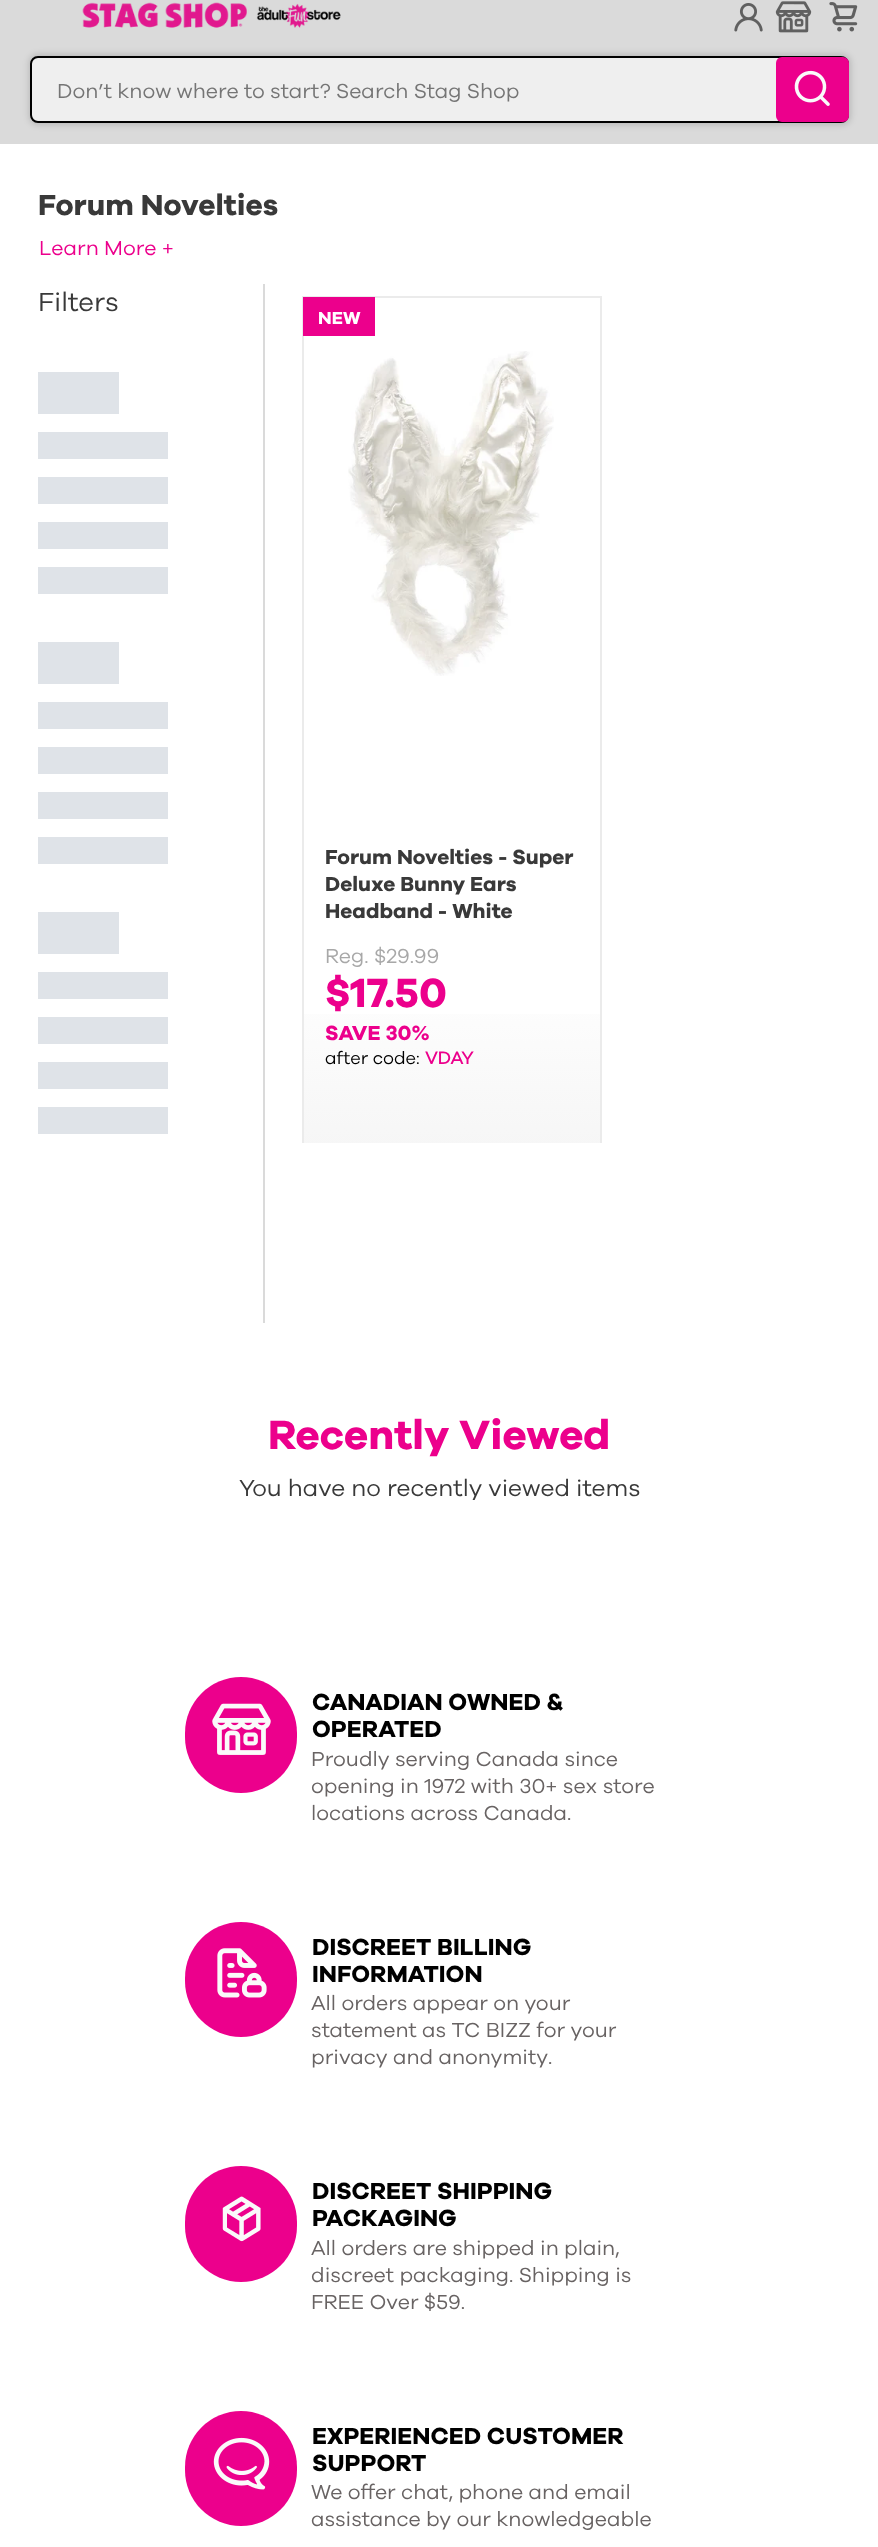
<!DOCTYPE html>
<meta charset="utf-8">
<style>body { margin: 0 } canvas { display: block }</style>
<canvas id="canvas" width="878" height="2547"></canvas>
<script type="module">
  const canvas = document.getElementById("canvas");
  const g = canvas.getContext("2d");
  g.miterLimit = 4;
  g.fontKerning = "normal";
  function drawText(s, x, y, [font, color]) {
    g.font = font;
    g.fillStyle = color;
    g.fillText(s, x, y);
  }
  function fillBox(x, y, w, h, color) {
    g.fillStyle = color;
    g.fillRect(x, y, w, h);
  }
  function fillRounded(x, y, w, h, r, color) {
    g.fillStyle = color;
    g.beginPath();
    g.roundRect(x, y, w, h, r);
    g.fill();
  }
  async function drawPicture(src, x, y, w, h) {
    const img = new Image();
    img.src = src;
    await img.decode();
    g.drawImage(img, x, y, w, h);
  }
  let gradient;

  const s1 = ["21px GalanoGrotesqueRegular", "#757575"];
  const s2 = ["bold 30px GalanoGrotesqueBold", "#393939"];
  const s3 = ["21px GalanoGrotesqueRegular", "#EC008C"];
  const s4 = ["27px GalanoGrotesqueRegular", "#393939"];
  const s5 = ["bold 18px GalanoGrotesqueBold", "#FFFFFF"];
  const s6 = ["bold 21px GalanoGrotesqueBold", "#393939"];
  const s7 = ["21px GalanoGrotesqueRegular", "#A8A8A8"];
  const s8 = ["bold 42px GalanoGrotesqueBold", "#EC008C"];
  const s9 = ["bold 21px GalanoGrotesqueBold", "#EC008C"];
  const s10 = ["18px GalanoGrotesqueRegular", "#000000"];
  const s11 = ["bold 18px GalanoGrotesqueRegular", "#EC008C"];
  const s12 = ["24px GalanoGrotesqueRegular", "#393939"];
  const s13 = ["bold 24px GalanoGrotesqueBold", "#000000"];
  const s14 = ["21px GalanoGrotesqueRegular", "#686363"];

  fillBox(0, 0, 878, 2547, "#FFFFFF");
  fillBox(0, 0, 878, 144, "#DADADA");
  await drawPicture("pic1.png", 82, 2, 259, 26);
  await drawPicture("pic2.png", 734, 3, 29, 29);
  await drawPicture("pic3.png", 775, 1, 37, 32);
  await drawPicture("pic4.png", 829, 2, 29, 30);
  g.fillStyle = "rgba(0, 0, 0, 0.15)";
  g.filter = "blur(3px)";
  g.beginPath();
  g.roundRect(29, 54, 822, 71, 9);
  g.fill();
  g.filter = "none";
  g.fillStyle = "#EFEFEF";
  g.beginPath();
  g.roundRect(31, 57, 817, 65, 7);
  g.fill();
  g.strokeStyle = "#000000";
  g.lineWidth = 2;
  g.stroke();
  drawText("Don’t know where to start? Search Stag Shop", 57, 98, s1);
  fillRounded(776, 57, 73, 65, 6, "#EC008C");
  await drawPicture("pic5.png", 794, 70, 36, 36);
  drawText("Forum Novelties", 38, 215, s2);
  drawText("Learn More +", 39, 255, s3);
  fillBox(263, 284, 2, 1039, "#DADADA");
  drawText("Filters", 38, 311, s4);
  fillBox(38, 1107, 130, 27, "#DFE3E8");
  fillBox(38, 1062, 130, 27, "#DFE3E8");
  fillBox(38, 1017, 130, 27, "#DFE3E8");
  fillBox(38, 972, 130, 27, "#DFE3E8");
  fillBox(38, 912, 81, 42, "#DFE3E8");
  fillBox(38, 837, 130, 27, "#DFE3E8");
  fillBox(38, 792, 130, 27, "#DFE3E8");
  fillBox(38, 747, 130, 27, "#DFE3E8");
  fillBox(38, 702, 130, 27, "#DFE3E8");
  fillBox(38, 642, 81, 42, "#DFE3E8");
  fillBox(38, 567, 130, 27, "#DFE3E8");
  fillBox(38, 522, 130, 27, "#DFE3E8");
  fillBox(38, 477, 130, 27, "#DFE3E8");
  fillBox(38, 432, 130, 27, "#DFE3E8");
  fillBox(38, 372, 81, 42, "#DFE3E8");
  gradient = g.createLinearGradient(452, 1149, 452, 297);
  gradient.addColorStop(0, "#F6F6F6");
  gradient.addColorStop(0.22, "#FFFFFF");
  g.fillStyle = gradient;
  g.fillRect(304, 1014, 296, 129);
  g.save();
  g.beginPath();
  g.rect(287, 281, 330, 862);
  g.clip();
  g.strokeStyle = "#EBEBEB";
  g.strokeRect(303, 297, 298, 853);
  g.restore();
  fillBox(303, 297, 72, 39, "#EC008C");
  drawText("NEW", 318, 324, s5);
  await drawPicture("pic6.png", 348, 351, 206, 325);
  drawText("Forum Novelties - Super", 325, 864, s6);
  drawText("Deluxe Bunny Ears", 325, 891, s6);
  drawText("Headband - White", 325, 918, s6);
  drawText("Reg. $29.99", 325, 963, s7);
  drawText("$17.50", 325, 1007, s8);
  drawText("SAVE 30%", 325, 1040, s9);
  drawText("after code:", 325, 1064, s10);
  drawText("VDAY", 425, 1064, s11);
  drawText("Recently Viewed", 268, 1449, s8);
  drawText("You have no recently viewed items", 239, 1496, s12);
  fillRounded(185, 1677, 112, 116, 56, "#EC008C");
  await drawPicture("pic7.png", 212, 1703, 59, 52);
  drawText("CANADIAN OWNED &", 312, 1710, s13);
  drawText("OPERATED", 312, 1737, s13);
  drawText("Proudly serving Canada since", 311, 1766, s14);
  drawText("opening in 1972 with 30+ sex store", 311, 1793, s14);
  drawText("locations across Canada.", 311, 1820, s14);
  fillRounded(185, 1922, 112, 115, 56, "#EC008C");
  await drawPicture("pic8.png", 217, 1948, 50, 50);
  drawText("DISCREET BILLING", 312, 1955, s13);
  drawText("INFORMATION", 312, 1982, s13);
  drawText("All orders appear on your", 311, 2010, s14);
  drawText("statement as TC BIZZ for your", 311, 2037, s14);
  drawText("privacy and anonymity.", 311, 2064, s14);
  fillRounded(185, 2166, 112, 116, 56, "#EC008C");
  await drawPicture("pic9.png", 222, 2196, 39, 46);
  drawText("DISCREET SHIPPING", 312, 2199, s13);
  drawText("PACKAGING", 312, 2226, s13);
  drawText("All orders are shipped in plain,", 311, 2255, s14);
  drawText("discreet packaging. Shipping is", 311, 2282, s14);
  drawText("FREE Over $59.", 311, 2309, s14);
  fillRounded(185, 2411, 112, 115, 56, "#EC008C");
  await drawPicture("pic10.png", 213, 2437, 57, 53);
  drawText("EXPERIENCED CUSTOMER", 312, 2444, s13);
  drawText("SUPPORT", 312, 2471, s13);
  drawText("We offer chat, phone and email", 311, 2499, s14);
  drawText("assistance by our knowledgeable", 311, 2526, s14);
</script>
